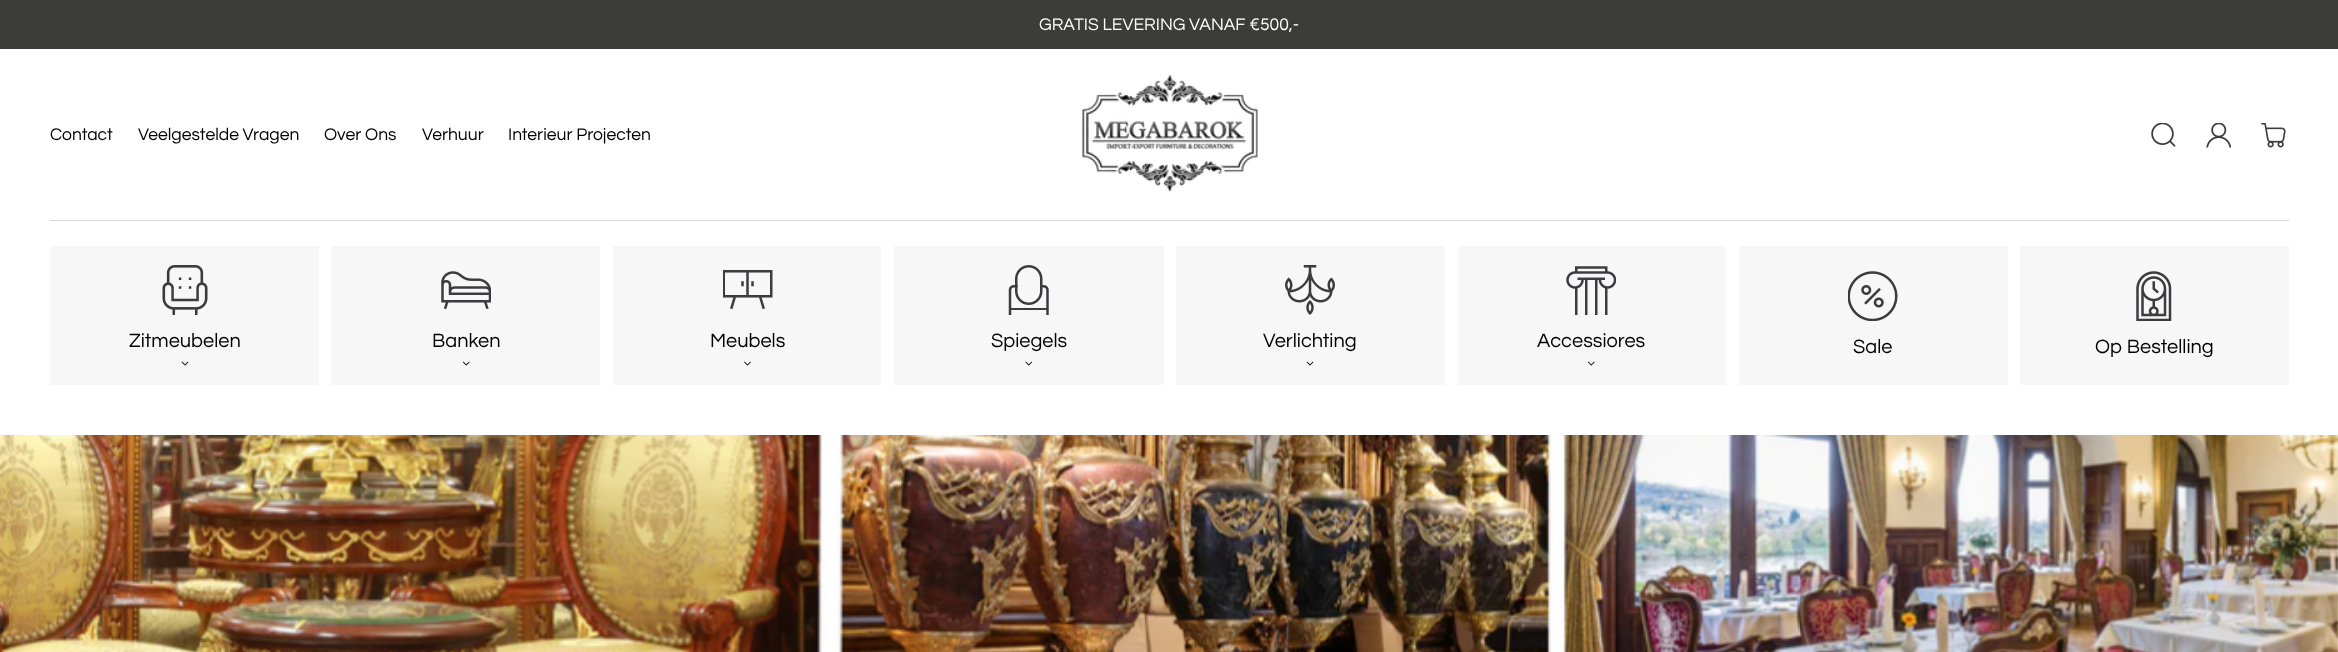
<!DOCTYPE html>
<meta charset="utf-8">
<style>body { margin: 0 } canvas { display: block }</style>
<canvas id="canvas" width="2338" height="652"></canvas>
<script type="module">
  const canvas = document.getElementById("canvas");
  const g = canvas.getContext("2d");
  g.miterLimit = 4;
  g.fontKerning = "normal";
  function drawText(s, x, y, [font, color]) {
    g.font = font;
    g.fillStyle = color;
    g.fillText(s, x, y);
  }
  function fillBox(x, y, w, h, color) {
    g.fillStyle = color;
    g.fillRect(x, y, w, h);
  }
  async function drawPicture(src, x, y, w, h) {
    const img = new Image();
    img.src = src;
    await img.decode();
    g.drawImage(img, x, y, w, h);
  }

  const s1 = ["17.5px Questrial", "#FFFFFF"];
  const s2 = ["17.5px Questrial", "#000000"];
  const s3 = ["20px Questrial", "#000000"];

  fillBox(0, 0, 2338, 652, "#FFFFFF");
  fillBox(0, 0, 2338, 49, "#3C3D3B");
  drawText("GRATIS LEVERING VANAF €500,-", 1039, 30, s1);
  drawText("Contact", 50, 140, s2);
  drawText("Veelgestelde Vragen", 138, 140, s2);
  drawText("Over Ons", 324, 140, s2);
  drawText("Verhuur", 422, 140, s2);
  drawText("Interieur Projecten", 508, 140, s2);
  await drawPicture("pic1.png", 1082, 75, 176, 117);
  await drawPicture("pic2.png", 2151, 123, 25, 24);
  await drawPicture("pic3.png", 2206, 123, 25, 25);
  await drawPicture("pic4.png", 2261, 123, 25, 25);
  fillBox(50, 220, 2239, 1, "#D9D9D9");
  fillBox(50, 246, 269, 139, "#F7F7F7");
  await drawPicture("pic5.png", 162, 265, 46, 50);
  drawText("Zitmeubelen", 129, 347, s3);
  await drawPicture("pic6.png", 181, 361, 8, 5);
  fillBox(331, 246, 269, 139, "#F7F7F7");
  await drawPicture("pic7.png", 441, 271, 50, 39);
  drawText("Banken", 432, 347, s3);
  await drawPicture("pic8.png", 463, 361, 7, 5);
  fillBox(613, 246, 268, 139, "#F7F7F7");
  await drawPicture("pic9.png", 723, 270, 50, 39);
  drawText("Meubels", 710, 347, s3);
  await drawPicture("pic10.png", 744, 361, 7, 5);
  fillBox(894, 246, 270, 139, "#F7F7F7");
  await drawPicture("pic11.png", 1008, 265, 41, 50);
  drawText("Spiegels", 991, 347, s3);
  await drawPicture("pic12.png", 1025, 361, 8, 5);
  fillBox(1176, 246, 269, 139, "#F7F7F7");
  await drawPicture("pic13.png", 1285, 265, 50, 50);
  drawText("Verlichting", 1263, 347, s3);
  await drawPicture("pic6.png", 1306, 361, 8, 5);
  fillBox(1458, 246, 268, 139, "#F7F7F7");
  await drawPicture("pic14.png", 1566, 266, 50, 49);
  drawText("Accessiores", 1537, 347, s3);
  await drawPicture("pic8.png", 1588, 361, 7, 5);
  fillBox(1739, 246, 269, 139, "#F7F7F7");
  await drawPicture("pic15.png", 1848, 271, 50, 50);
  drawText("Sale", 1853, 353, s3);
  fillBox(2020, 246, 269, 139, "#F7F7F7");
  await drawPicture("pic16.png", 2136, 271, 36, 50);
  drawText("Op Bestelling", 2095, 353, s3);
  await drawPicture("pic17.png", 0, 435, 2338, 217);
</script>
